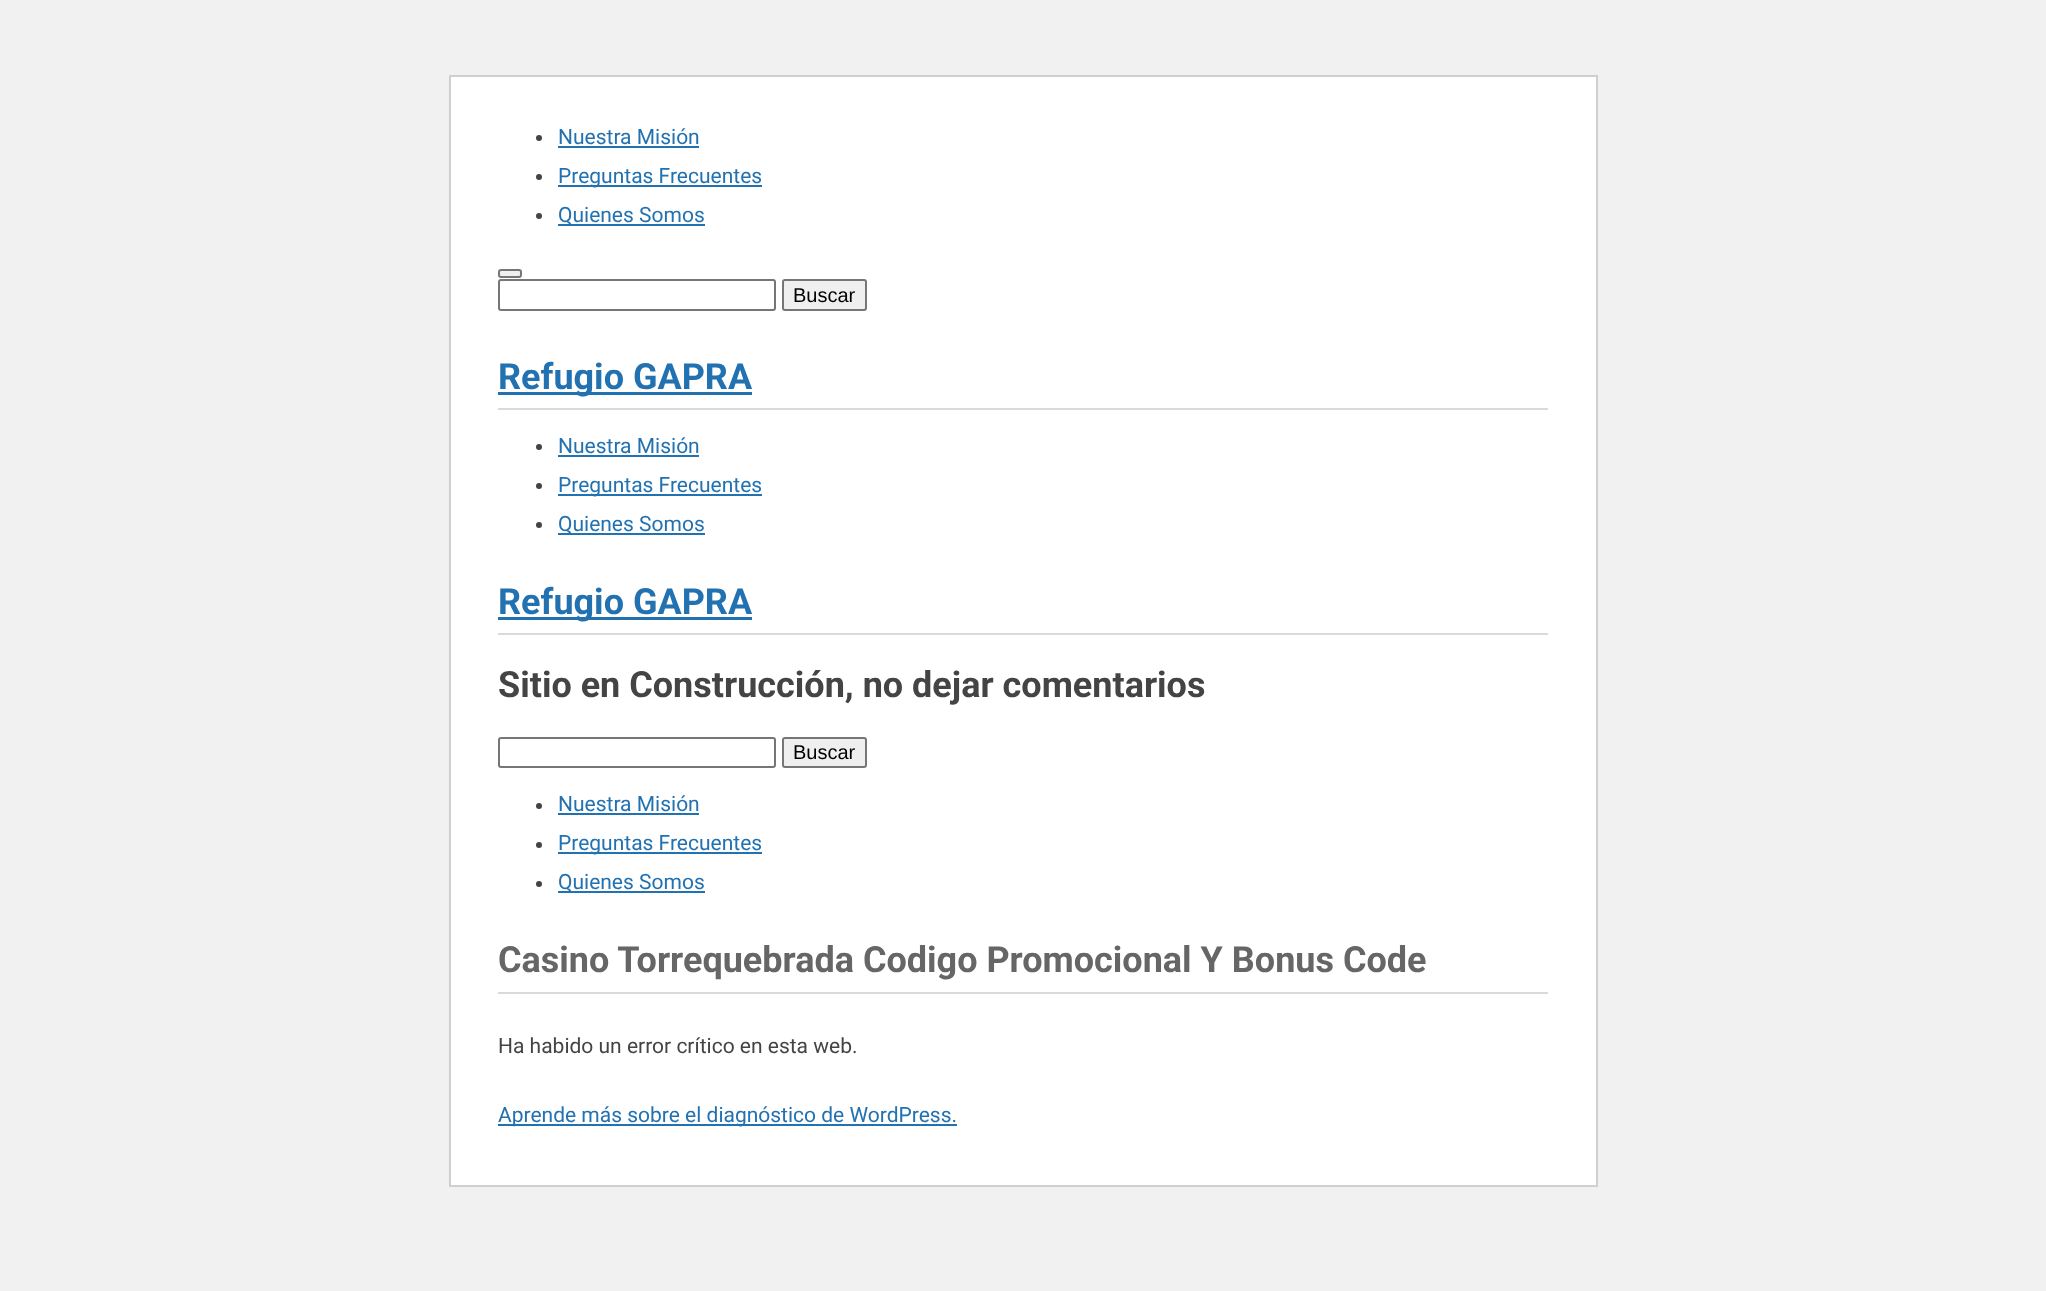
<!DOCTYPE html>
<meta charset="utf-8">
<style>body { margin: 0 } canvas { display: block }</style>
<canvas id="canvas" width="2046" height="1291"></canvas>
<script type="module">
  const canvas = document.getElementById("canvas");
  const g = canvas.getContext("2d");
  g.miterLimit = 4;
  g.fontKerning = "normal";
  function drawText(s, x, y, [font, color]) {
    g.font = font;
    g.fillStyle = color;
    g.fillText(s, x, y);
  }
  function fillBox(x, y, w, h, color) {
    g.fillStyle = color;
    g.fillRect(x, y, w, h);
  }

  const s1 = ["21px Roboto", "#2271B1"];
  const s2 = ["20px Liberation Sans", "#000000"];
  const s3 = ["bold 36px Roboto", "#2271B1"];
  const s4 = ["bold 36px Roboto", "#444444"];
  const s5 = ["bold 36px Roboto", "#666666"];
  const s6 = ["21px Roboto", "#444444"];

  fillBox(0, 0, 2046, 1291, "#F1F1F1");
  g.fillStyle = "#FFFFFF";
  g.beginPath();
  g.rect(450, 76, 1147, 1110);
  g.fill();
  g.strokeStyle = "#CCD0D4";
  g.lineWidth = 2;
  g.stroke();
  g.fillStyle = "#444444";
  g.beginPath();
  g.arc(539, 138, 3, 0, Math.PI * 2);
  g.fill();
  drawText("Nuestra Misión", 558, 144, s1);
  fillBox(558, 146, 141, 2, "#2271B1");
  g.fillStyle = "#444444";
  g.beginPath();
  g.arc(539, 177, 3, 0, Math.PI * 2);
  g.fill();
  fillBox(558, 185, 204, 2, "#2271B1");
  drawText("Preguntas Frecuentes", 558, 183, s1);
  g.fillStyle = "#444444";
  g.beginPath();
  g.arc(539, 216, 3, 0, Math.PI * 2);
  g.fill();
  fillBox(558, 224, 147, 2, "#2271B1");
  drawText("Quienes Somos", 558, 222, s1);
  g.fillStyle = "#EFEFEF";
  g.beginPath();
  g.roundRect(499, 270, 22, 7, 2);
  g.fill();
  g.strokeStyle = "#767676";
  g.stroke();
  g.beginPath();
  g.roundRect(499, 280, 276, 30, 2);
  g.stroke();
  g.beginPath();
  g.roundRect(783, 280, 83, 30, 2);
  g.fill();
  g.stroke();
  drawText("Buscar", 793, 302, s2);
  fillBox(498, 408, 1050, 2, "#DADADA");
  fillBox(498, 392, 254, 3, "#2271B1");
  drawText("Refugio GAPRA", 498, 389, s3);
  g.fillStyle = "#444444";
  g.beginPath();
  g.arc(539, 447, 3, 0, Math.PI * 2);
  g.fill();
  drawText("Nuestra Misión", 558, 453, s1);
  fillBox(558, 455, 141, 2, "#2271B1");
  g.fillStyle = "#444444";
  g.beginPath();
  g.arc(539, 486, 3, 0, Math.PI * 2);
  g.fill();
  fillBox(558, 494, 204, 2, "#2271B1");
  drawText("Preguntas Frecuentes", 558, 492, s1);
  g.fillStyle = "#444444";
  g.beginPath();
  g.arc(539, 525, 3, 0, Math.PI * 2);
  g.fill();
  fillBox(558, 533, 147, 2, "#2271B1");
  drawText("Quienes Somos", 558, 531, s1);
  fillBox(498, 633, 1050, 2, "#DADADA");
  fillBox(498, 617, 254, 3, "#2271B1");
  drawText("Refugio GAPRA", 498, 614, s3);
  drawText("Sitio en Construcción, no dejar comentarios", 498, 697, s4);
  g.beginPath();
  g.roundRect(499, 738, 276, 29, 2);
  g.stroke();
  g.fillStyle = "#EFEFEF";
  g.beginPath();
  g.roundRect(783, 738, 83, 29, 2);
  g.fill();
  g.stroke();
  drawText("Buscar", 793, 759, s2);
  g.fillStyle = "#444444";
  g.beginPath();
  g.arc(539, 806, 3, 0, Math.PI * 2);
  g.fill();
  drawText("Nuestra Misión", 558, 811, s1);
  fillBox(558, 813, 141, 2, "#2271B1");
  g.fillStyle = "#444444";
  g.beginPath();
  g.arc(539, 845, 3, 0, Math.PI * 2);
  g.fill();
  fillBox(558, 852, 204, 2, "#2271B1");
  drawText("Preguntas Frecuentes", 558, 850, s1);
  g.fillStyle = "#444444";
  g.beginPath();
  g.arc(539, 884, 3, 0, Math.PI * 2);
  g.fill();
  fillBox(558, 891, 147, 2, "#2271B1");
  drawText("Quienes Somos", 558, 889, s1);
  fillBox(498, 992, 1050, 2, "#DADADA");
  drawText("Casino Torrequebrada Codigo Promocional Y Bonus Code", 498, 972, s5);
  drawText("Ha habido un error crítico en esta web.", 498, 1053, s6);
  fillBox(498, 1124, 459, 2, "#2271B1");
  drawText("Aprende más sobre el diagnóstico de WordPress.", 498, 1122, s1);
</script>
